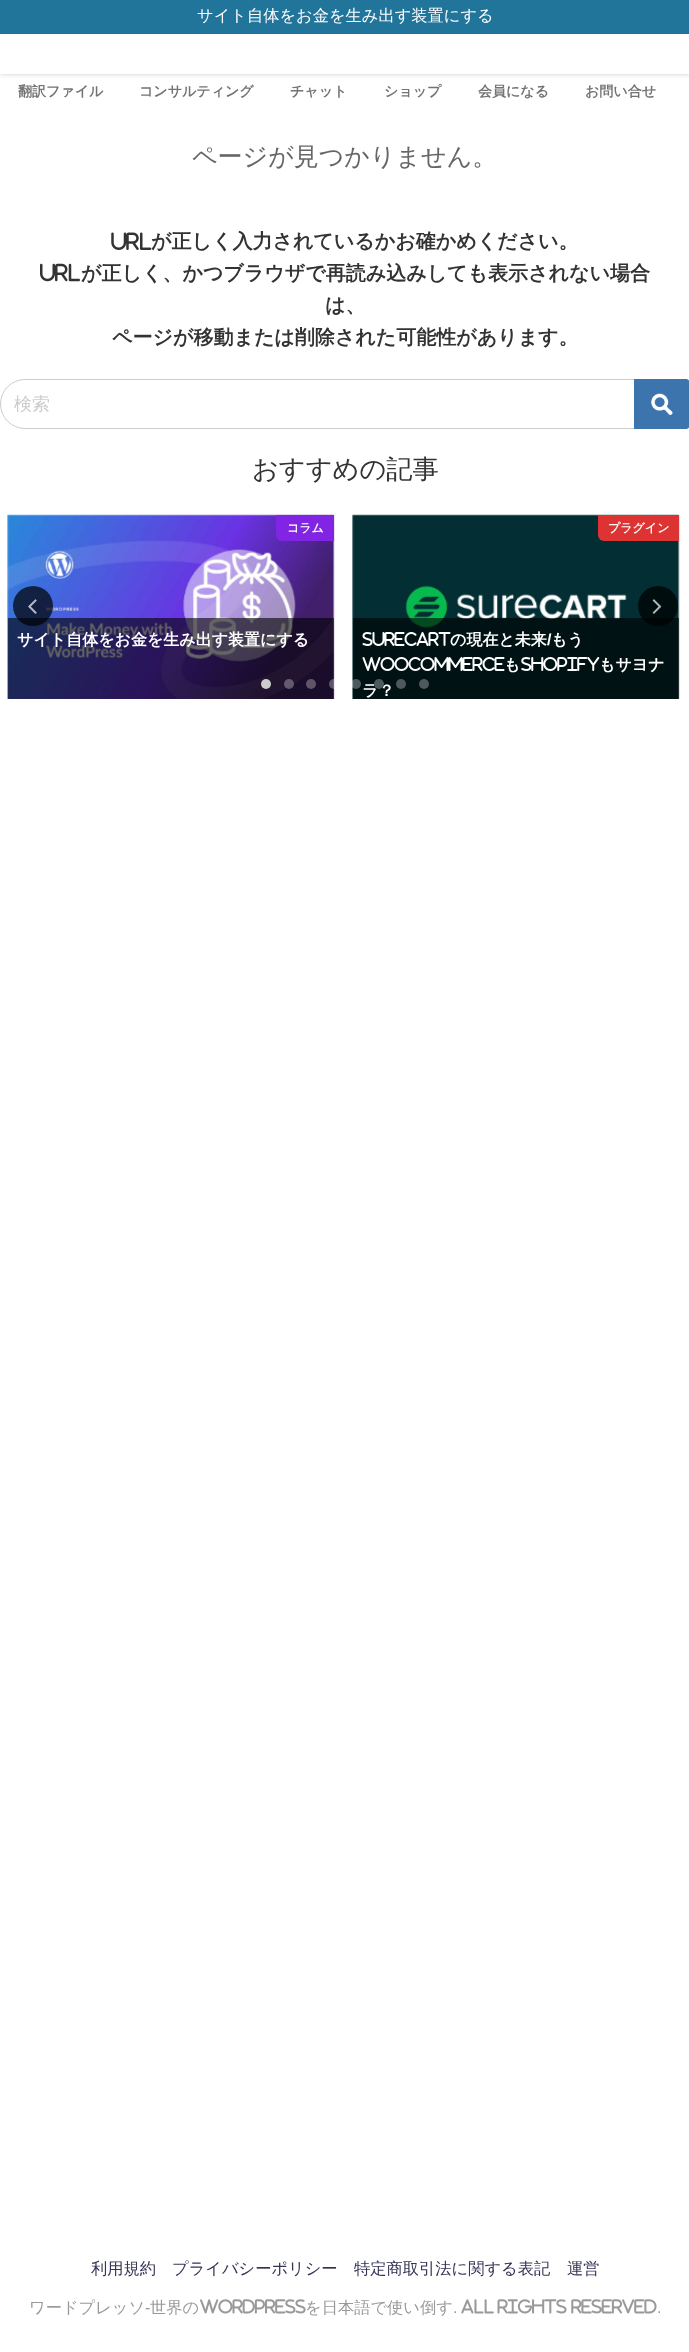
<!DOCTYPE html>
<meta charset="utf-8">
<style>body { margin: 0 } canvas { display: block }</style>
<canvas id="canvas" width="689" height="2352"></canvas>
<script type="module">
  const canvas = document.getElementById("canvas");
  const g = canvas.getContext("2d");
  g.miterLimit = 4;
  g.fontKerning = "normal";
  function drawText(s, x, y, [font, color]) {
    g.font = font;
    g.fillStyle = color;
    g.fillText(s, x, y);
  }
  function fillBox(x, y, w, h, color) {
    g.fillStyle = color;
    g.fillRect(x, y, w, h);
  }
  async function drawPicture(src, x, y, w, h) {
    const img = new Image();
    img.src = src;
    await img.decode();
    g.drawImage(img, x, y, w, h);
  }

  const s1 = ["500 16.25px WenQuanYi Zen Hei", "#FFFFFF"];
  const s2 = ["bold 14px WenQuanYi Zen Hei", "#737373"];
  const s3 = ["500 25px WenQuanYi Zen Hei", "#666666"];
  const s4 = ["bold 20px WenQuanYi Zen Hei", "#333333"];
  const s5 = ["500 18px WenQuanYi Zen Hei", "#CCCCCC"];
  const s6 = ["500 26.25px WenQuanYi Zen Hei", "#333333"];
  const s7 = ["bold 12px WenQuanYi Zen Hei", "#FFFFFF"];
  const s8 = ["bold 16px WenQuanYi Zen Hei", "#FFFFFF"];
  const s9 = ["bold 16px Liberation Sans", "#FFFFFF"];
  const s10 = ["500 16.25px WenQuanYi Zen Hei", "#333355"];
  const s11 = ["500 16.25px WenQuanYi Zen Hei", "#999999"];
  const s12 = ["16.25px Liberation Sans", "#999999"];

  fillBox(0, 0, 689, 2352, "#FFFFFF");
  g.fillStyle = "rgba(0, 0, 0, 0.2)";
  g.filter = "blur(2.5px)";
  g.beginPath();
  g.rect(0, 0, 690, 74);
  g.fill();
  g.filter = "none";
  fillBox(0, 34, 689, 40, "#FFFFFF");
  fillBox(0, 0, 689, 34, "#21759B");
  drawText("サイト自体をお金を生み出す装置にする", 197, 21, s1);
  drawText("翻訳ファイル", 18, 96, s2);
  drawText("コンサルティング", 139, 96, s2);
  drawText("チャット", 290, 96, s2);
  drawText("ショップ", 384, 96, s2);
  drawText("会員になる", 478, 96, s2);
  drawText("お問い合せ", 585, 96, s2);
  drawText("ページが見つかりません。", 192, 165, s3);
  await drawPicture("pic1.png", 111, 232, 41, 18);
  drawText("が正しく入力されているかお確かめください。", 151, 248, s4);
  await drawPicture("pic2.png", 40, 263, 40, 19);
  drawText("が正しく、かつブラウザで再読み込みしても表示されない場合", 81, 280, s4);
  drawText("は、", 325, 312, s4);
  drawText("ページが移動または削除された可能性があります。", 112, 344, s4);
  g.beginPath();
  g.roundRect(0.5, 379.5, 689, 49, 24.5);
  g.strokeStyle = "#CCCCCC";
  g.stroke();
  drawText("検索", 14, 410, s5);
  g.fillStyle = "#3C74AD";
  g.beginPath();
  g.moveTo(634, 379);
  g.lineTo(686, 379);
  g.bezierCurveTo(688, 379, 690, 381, 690, 383);
  g.lineTo(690, 425);
  g.bezierCurveTo(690, 427, 688, 429, 686, 429);
  g.lineTo(634, 429);
  g.closePath();
  g.fill();
  await drawPicture("pic3.png", 651, 393, 22, 22);
  drawText("おすすめの記事", 252, 478, s6);
  await drawPicture("pic4.png", 7, 514, 328, 185);
  g.fillStyle = "#8224E3";
  g.beginPath();
  g.roundRect(276, 515, 58, 26, [0, 0, 0, 6]);
  g.fill();
  drawText("コラム", 287, 532, s7);
  fillBox(8, 618, 326, 81, "rgba(0, 0, 0, 0.6)");
  drawText("サイト自体をお金を生み出す装置にする", 17, 645, s8);
  await drawPicture("pic5.png", 352, 514, 328, 185);
  g.fillStyle = "#DD3333";
  g.beginPath();
  g.roundRect(598, 515, 81, 26, [0, 0, 0, 6]);
  g.fill();
  drawText("プラグイン", 608, 532, s7);
  fillBox(353, 618, 326, 81, "rgba(0, 0, 0, 0.6)");
  await drawPicture("pic6.png", 362, 632, 89, 14);
  drawText("の現在と未来", 450, 645, s8);
  drawText("/", 547, 645, s9);
  drawText("もう", 551, 645, s8);
  await drawPicture("pic7.png", 362, 657, 143, 14);
  drawText("も", 504, 670, s8);
  await drawPicture("pic8.png", 521, 657, 79, 14);
  drawText("もサヨナ", 599, 670, s8);
  drawText("ラ？", 362, 696, s8);
  g.fillStyle = "rgba(0, 0, 0, 0.7)";
  g.beginPath();
  g.arc(33, 606, 20, 0, Math.PI * 2);
  g.fill();
  await drawPicture("pic9.png", 28, 599, 9, 15);
  g.beginPath();
  g.arc(658, 606, 20, 0, Math.PI * 2);
  g.fill();
  await drawPicture("pic10.png", 652, 599, 10, 15);
  g.fillStyle = "#CCCCCC";
  g.beginPath();
  g.arc(266, 684, 5, 0, Math.PI * 2);
  g.fill();
  g.fillStyle = "rgba(255, 255, 255, 0.3)";
  g.beginPath();
  g.arc(289, 684, 5, 0, Math.PI * 2);
  g.fill();
  g.fillStyle = "#5F556A";
  g.beginPath();
  g.arc(311, 684, 5, 0, Math.PI * 2);
  g.fill();
  g.fillStyle = "rgba(255, 255, 255, 0.3)";
  g.beginPath();
  g.arc(334, 684, 5, 0, Math.PI * 2);
  g.fill();
  g.beginPath();
  g.arc(356, 684, 5, 0, Math.PI * 2);
  g.fill();
  g.fillStyle = "#4D595B";
  g.beginPath();
  g.arc(379, 684, 5, 0, Math.PI * 2);
  g.fill();
  g.beginPath();
  g.arc(401, 684, 5, 0, Math.PI * 2);
  g.fill();
  g.beginPath();
  g.arc(424, 684, 5, 0, Math.PI * 2);
  g.fill();
  drawText("利用規約", 91, 2274, s10);
  drawText("プライバシーポリシー", 172, 2274, s10);
  drawText("特定商取引法に関する表記", 354, 2274, s10);
  drawText("運営", 567, 2274, s10);
  drawText("ワードプレッソ", 29, 2313, s11);
  drawText("-", 145, 2313, s12);
  drawText("世界の", 150, 2313, s11);
  await drawPicture("pic11.png", 200, 2299, 106, 15);
  drawText("を日本語で使い倒す", 305, 2313, s11);
  await drawPicture("pic12.png", 461, 2299, 33, 15);
  await drawPicture("pic13.png", 497, 2299, 70, 15);
  await drawPicture("pic14.png", 571, 2299, 86, 15);
  drawText(".", 453, 2313, s12);
  drawText(".", 657, 2313, s12);
</script>
